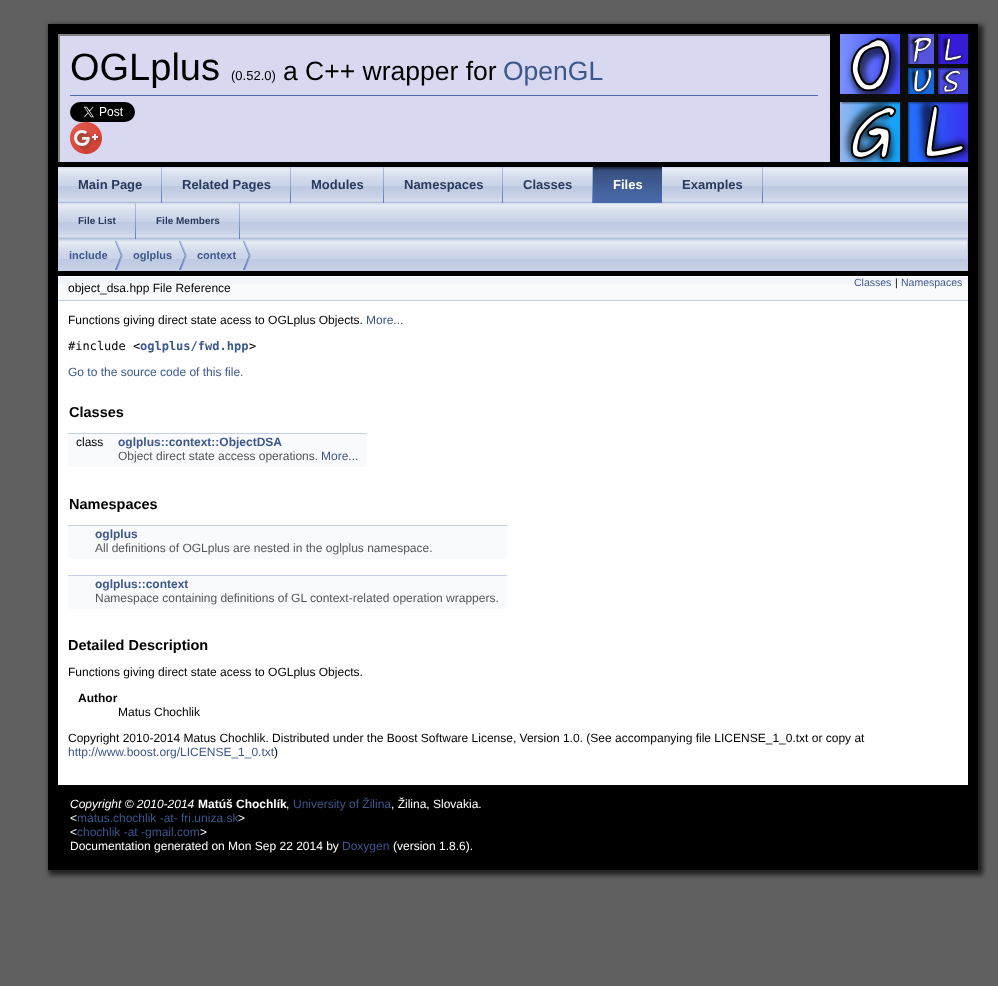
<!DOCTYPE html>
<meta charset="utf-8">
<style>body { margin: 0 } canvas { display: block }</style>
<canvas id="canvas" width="998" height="986"></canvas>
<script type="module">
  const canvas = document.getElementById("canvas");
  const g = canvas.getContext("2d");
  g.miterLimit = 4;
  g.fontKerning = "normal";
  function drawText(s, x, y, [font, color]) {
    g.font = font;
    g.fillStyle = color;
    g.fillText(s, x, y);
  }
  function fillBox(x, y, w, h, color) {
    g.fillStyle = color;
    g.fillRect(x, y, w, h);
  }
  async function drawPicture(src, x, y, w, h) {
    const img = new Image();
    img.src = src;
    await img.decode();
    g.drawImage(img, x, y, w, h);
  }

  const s1 = ["38px Liberation Sans", "#000000"];
  const s2 = ["13px Liberation Sans", "#000000"];
  const s3 = ["26.5px Liberation Sans", "#000000"];
  const s4 = ["26.5px Liberation Sans", "#3D578C"];
  const s5 = ["bold 13px Liberation Sans", "#283A5D"];
  const s6 = ["bold 13px Liberation Sans", "#FFFFFF"];
  const s7 = ["bold 10px Liberation Sans", "#283A5D"];
  const s8 = ["bold 11px Liberation Sans", "#3D578C"];
  const s9 = ["12px Liberation Sans", "#000000"];
  const s10 = ["10.5px Liberation Sans", "#3D578C"];
  const s11 = ["10.5px Liberation Sans", "#000000"];
  const s12 = ["12px Liberation Sans", "#3D578C"];
  const s13 = ["12px DejaVu Sans Mono", "#000000"];
  const s14 = ["bold 12px DejaVu Sans Mono", "#3D578C"];
  const s15 = ["bold 14.5px Liberation Sans", "#000000"];
  const s16 = ["bold 12px Liberation Sans", "#3D578C"];
  const s17 = ["12px Liberation Sans", "#555555"];
  const s18 = ["bold 12px Liberation Sans", "#000000"];
  const s19 = ["italic 12px Liberation Sans", "#FFFFFF"];
  const s20 = ["bold 12px Liberation Sans", "#FFFFFF"];
  const s21 = ["12px Liberation Sans", "#FFFFFF"];

  fillBox(0, 0, 998, 986, "#606060");
  g.fillStyle = "#202020";
  g.filter = "blur(2.5px)";
  g.beginPath();
  g.rect(49, 25, 934, 850);
  g.fill();
  g.filter = "none";
  fillBox(58, 301, 910, 484, "#FFFFFF");
  g.strokeStyle = "#000000";
  g.lineWidth = 5;
  g.strokeRect(50.5, 26.5, 925, 841);
  fillBox(835, 29, 138, 138, "#000000");
  fillBox(60, 36, 770, 126, "#D8D8F0");
  g.save();
  g.beginPath();
  g.rect(58, 34, 772, 128);
  g.clip();
  g.fillStyle = "#808080";
  g.beginPath();
  g.moveTo(-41, -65);
  g.lineTo(929, -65);
  g.lineTo(929, 261);
  g.lineTo(-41, 261);
  g.closePath();
  g.moveTo(60, 36);
  g.lineTo(830, 36);
  g.lineTo(830, 162);
  g.lineTo(60, 162);
  g.closePath();
  g.fill("evenodd");
  g.restore();
  g.strokeRect(55.5, 31.5, 777, 133);
  drawText("OGLplus", 70, 80, s1);
  drawText("(0.52.0)", 231, 80, s2);
  drawText("a C++ wrapper for", 283, 80, s3);
  drawText("OpenGL", 503, 80, s4);
  fillBox(70, 95, 748, 1, "#4A6AAA");
  await drawPicture("pic1.png", 70, 102, 65, 20);
  await drawPicture("pic2.png", 70, 122, 32, 32);
  await drawPicture("pic3.png", 840, 34, 128, 128);
  fillBox(968, 167, 5, 698, "#000000");
  fillBox(53, 167, 5, 698, "#000000");
  fillBox(58, 271, 910, 5, "#000000");
  await drawPicture("pic4.png", 58, 167, 910, 36);
  await drawPicture("pic5.png", 161, 167, 1, 36);
  drawText("Main Page", 78, 189, s5);
  await drawPicture("pic5.png", 290, 167, 1, 36);
  drawText("Related Pages", 182, 189, s5);
  await drawPicture("pic5.png", 383, 167, 1, 36);
  drawText("Modules", 311, 189, s5);
  await drawPicture("pic5.png", 502, 167, 1, 36);
  drawText("Namespaces", 404, 189, s5);
  await drawPicture("pic5.png", 592, 167, 1, 36);
  drawText("Classes", 523, 189, s5);
  await drawPicture("pic6.png", 593, 167, 69, 36);
  drawText("Files", 613, 189, s6);
  await drawPicture("pic5.png", 762, 167, 1, 36);
  drawText("Examples", 682, 189, s5);
  await drawPicture("pic4.png", 58, 203, 910, 36);
  await drawPicture("pic5.png", 135, 203, 1, 36);
  drawText("File List", 78, 224, s7);
  await drawPicture("pic5.png", 239, 203, 1, 36);
  drawText("File Members", 156, 224, s7);
  await drawPicture("pic7.png", 59, 240, 908, 30);
  g.strokeStyle = "#C2CDE4";
  g.lineWidth = 1;
  g.strokeRect(58.5, 239.5, 909, 31);
  await drawPicture("pic8.png", 115, 241, 8, 29);
  drawText("include", 69, 259, s8);
  await drawPicture("pic8.png", 179, 241, 8, 29);
  drawText("oglplus", 133, 259, s8);
  await drawPicture("pic8.png", 243, 241, 8, 29);
  drawText("context", 197, 259, s8);
  fillBox(58, 284, 910, 16, "#F9FAFC");
  await drawPicture("pic9.png", 58, 276, 910, 8);
  fillBox(58, 300, 910, 1, "#C4CFE5");
  drawText("object_dsa.hpp File Reference", 68, 292, s9);
  drawText("Classes", 854, 286, s10);
  drawText("|", 895, 286, s11);
  drawText("Namespaces", 901, 286, s10);
  drawText("Functions giving direct state acess to OGLplus Objects.", 68, 324, s9);
  drawText("More...", 366, 324, s12);
  drawText("#include <", 68, 350, s13);
  drawText("oglplus/fwd.hpp", 140, 350, s14);
  drawText(">", 249, 350, s13);
  drawText("Go to the source code of this file.", 68, 376, s12);
  drawText("Classes", 69, 417, s15);
  fillBox(68, 434, 299, 15, "#F9FAFC");
  fillBox(68, 433, 299, 1, "#C4CFE5");
  drawText("class", 76, 446, s9);
  drawText("oglplus::context::ObjectDSA", 118, 446, s16);
  fillBox(68, 449, 299, 18, "#F9FAFC");
  drawText("Object direct state access operations.", 118, 460, s17);
  drawText("More...", 321, 460, s12);
  drawText("Namespaces", 69, 509, s15);
  fillBox(68, 526, 439, 15, "#F9FAFC");
  fillBox(68, 525, 439, 1, "#C4CFE5");
  drawText("oglplus", 95, 538, s16);
  fillBox(68, 541, 439, 18, "#F9FAFC");
  drawText("All definitions of OGLplus are nested in the oglplus namespace.", 95, 552, s17);
  fillBox(68, 576, 439, 15, "#F9FAFC");
  fillBox(68, 575, 439, 1, "#C4CFE5");
  drawText("oglplus::context", 95, 588, s16);
  fillBox(68, 591, 439, 18, "#F9FAFC");
  drawText("Namespace containing definitions of GL context-related operation wrappers.", 95, 602, s17);
  drawText("Detailed Description", 68, 650, s15);
  drawText("Functions giving direct state acess to OGLplus Objects.", 68, 676, s9);
  drawText("Author", 78, 702, s18);
  drawText("Matus Chochlik", 118, 716, s9);
  drawText("Copyright 2010-2014 Matus Chochlik. Distributed under the Boost Software License, Version 1.0. (See accompanying file LICENSE_1_0.txt or copy at", 68, 742, s9);
  drawText("http://www.boost.org/LICENSE_1_0.txt", 68, 756, s12);
  drawText(")", 274, 756, s9);
  fillBox(58, 785, 910, 80, "#000000");
  drawText("Copyright © 2010-2014", 70, 808, s19);
  drawText("Matúš Chochlík", 198, 808, s20);
  drawText(",", 286, 808, s21);
  drawText("University of Žilina", 293, 808, s12);
  drawText(", Žilina, Slovakia.", 391, 808, s21);
  drawText("<", 70, 822, s21);
  drawText("matus.chochlik -at- fri.uniza.sk", 77, 822, s12);
  drawText(">", 238, 822, s21);
  drawText("<", 70, 836, s21);
  drawText("chochlik -at -gmail.com", 77, 836, s12);
  drawText(">", 200, 836, s21);
  drawText("Documentation generated on Mon Sep 22 2014 by", 70, 850, s21);
  drawText("Doxygen", 342, 850, s12);
  drawText("(version 1.8.6).", 393, 850, s21);
</script>
